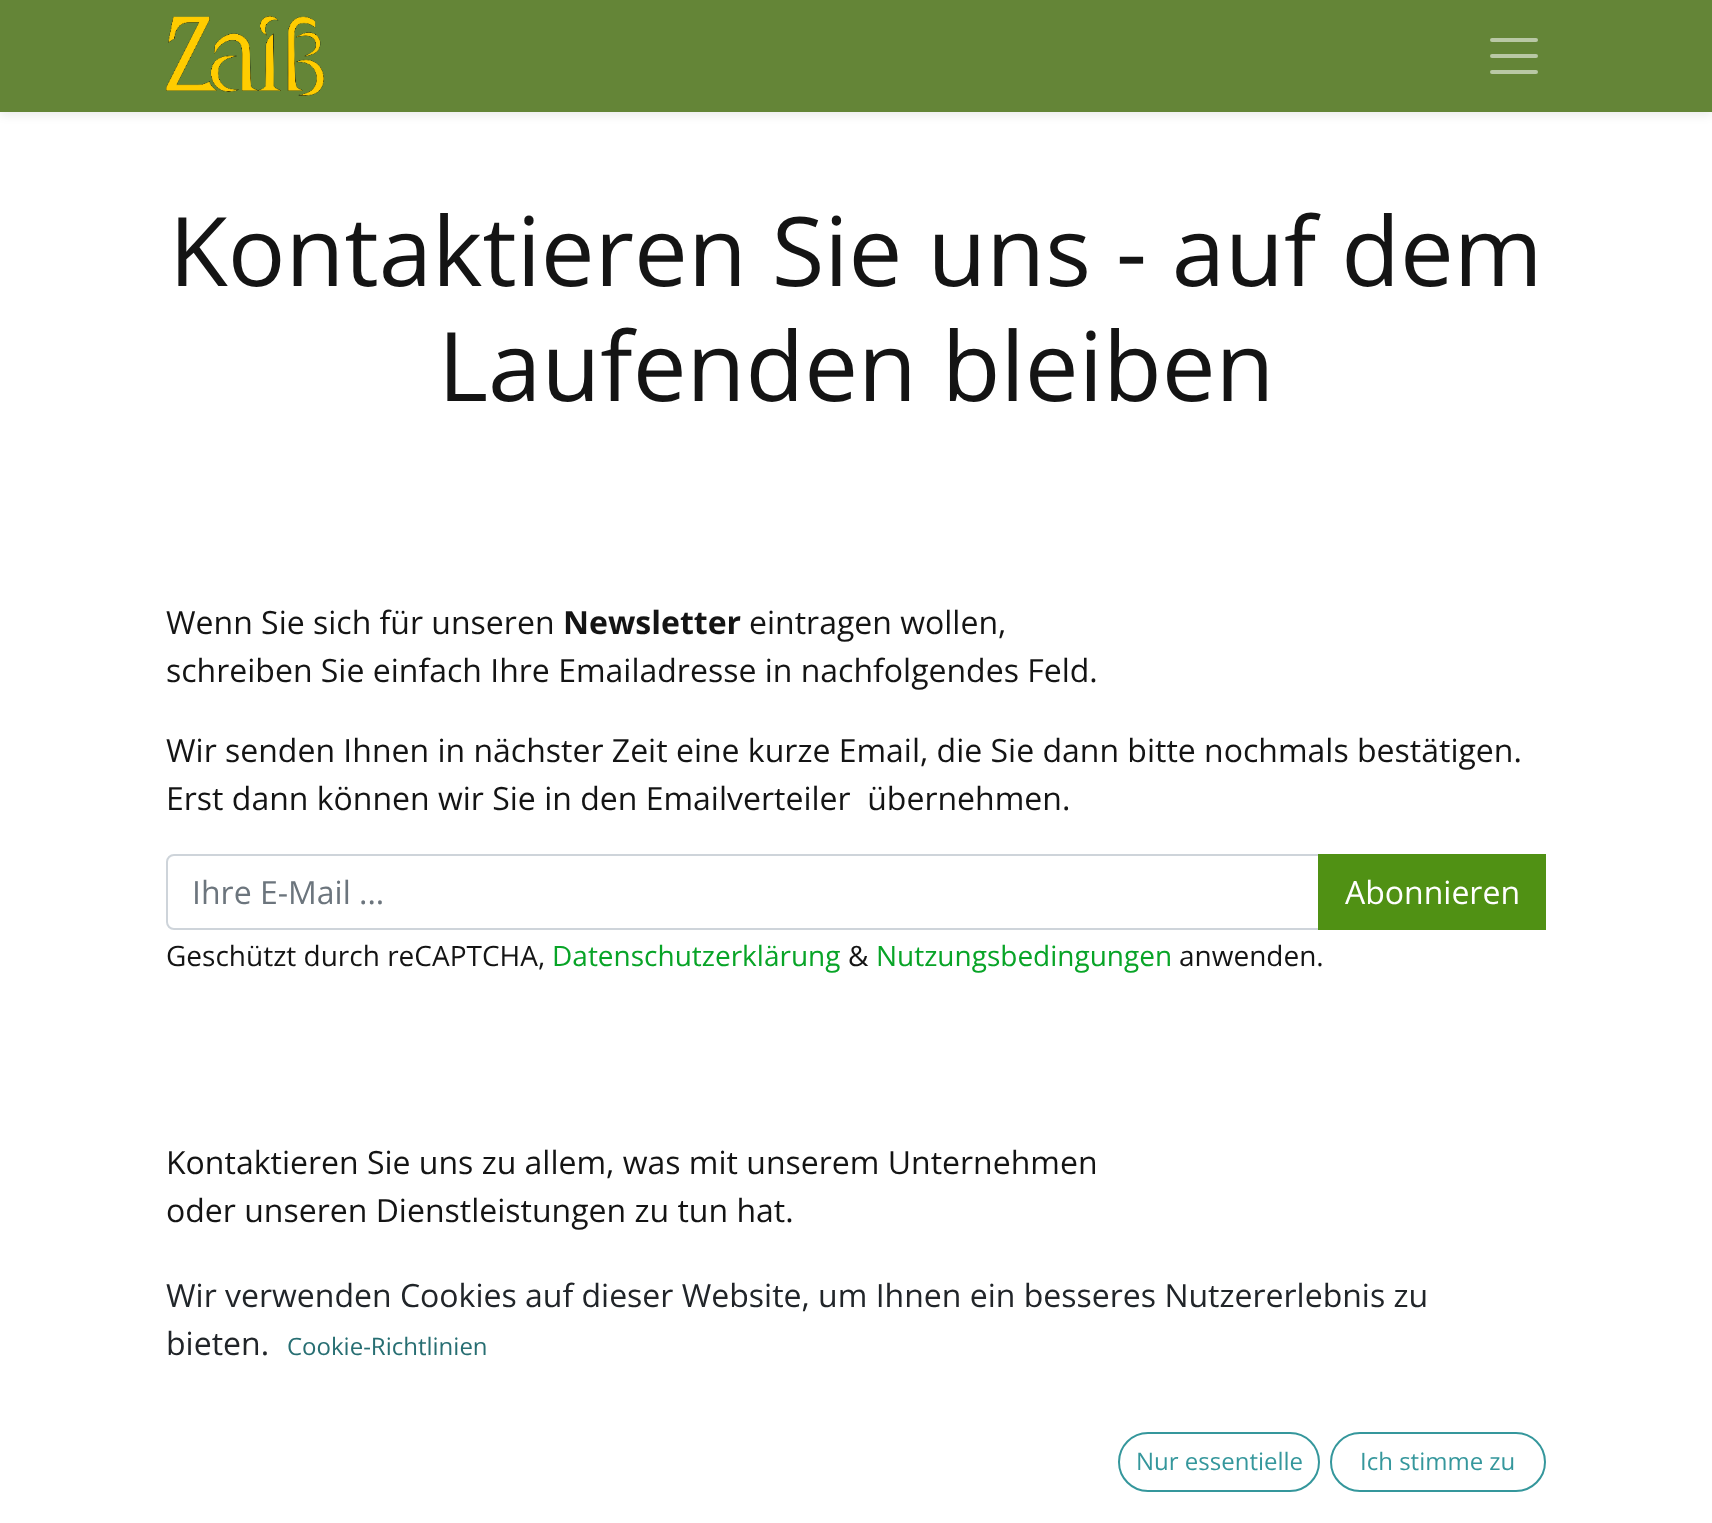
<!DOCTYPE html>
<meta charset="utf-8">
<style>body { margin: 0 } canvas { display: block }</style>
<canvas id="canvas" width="1712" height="1523"></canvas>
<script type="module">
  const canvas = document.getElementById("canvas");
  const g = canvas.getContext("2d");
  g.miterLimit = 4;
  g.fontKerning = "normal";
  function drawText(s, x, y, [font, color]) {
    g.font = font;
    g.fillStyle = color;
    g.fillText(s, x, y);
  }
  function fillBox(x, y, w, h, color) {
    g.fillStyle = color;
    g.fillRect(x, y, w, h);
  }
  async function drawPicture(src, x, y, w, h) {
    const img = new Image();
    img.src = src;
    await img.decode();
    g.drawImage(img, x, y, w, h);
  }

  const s1 = ["96px Open Sans", "#141414"];
  const s2 = ["32px Open Sans", "#141414"];
  const s3 = ["bold 32px Open Sans", "#141414"];
  const s4 = ["32px Open Sans", "#6C757D"];
  const s5 = ["32px Open Sans", "#FFFFFF"];
  const s6 = ["28px Open Sans", "#141414"];
  const s7 = ["28px Open Sans", "#08A427"];
  const s8 = ["32px Open Sans", "#212529"];
  const s9 = ["24px Open Sans", "#276E72"];
  const s10 = ["24px Open Sans", "#35979C"];

  fillBox(0, 0, 1712, 1523, "#FFFFFF");
  g.fillStyle = "rgba(0, 0, 0, 0.07)";
  g.filter = "blur(4px)";
  g.beginPath();
  g.rect(0, 4, 1712, 112);
  g.fill();
  g.filter = "none";
  fillBox(0, 0, 1712, 112, "#648537");
  await drawPicture("pic1.png", 166, 16, 158, 80);
  g.beginPath();
  g.moveTo(1492, 40);
  g.lineTo(1536, 40);
  g.moveTo(1492, 56);
  g.lineTo(1536, 56);
  g.moveTo(1492, 72);
  g.lineTo(1536, 72);
  g.strokeStyle = "#B9C8A5";
  g.lineWidth = 4;
  g.lineCap = "round";
  g.stroke();
  drawText("Kontaktieren Sie uns - auf dem", 169, 286, s1);
  drawText("Laufenden bleiben", 438, 401, s1);
  drawText("Wenn Sie sich für unseren", 166, 634, s2);
  drawText("Newsletter", 563, 634, s3);
  drawText("eintragen wollen,", 749, 634, s2);
  drawText("schreiben Sie einfach Ihre Emailadresse in nachfolgendes Feld.", 166, 682, s2);
  drawText("Wir senden Ihnen in nächster Zeit eine kurze Email, die Sie dann bitte nochmals bestätigen.", 166, 762, s2);
  drawText("Erst dann können wir Sie in den Emailverteiler  übernehmen.", 166, 810, s2);
  g.beginPath();
  g.roundRect(167, 855, 1152, 74, [7, 0, 0, 7]);
  g.strokeStyle = "#CED4DA";
  g.lineWidth = 2;
  g.stroke();
  drawText("Ihre E-Mail ...", 192, 904, s4);
  fillBox(1318, 854, 228, 76, "#509114");
  drawText("Abonnieren", 1345, 904, s5);
  drawText("Geschützt durch reCAPTCHA,", 166, 966, s6);
  drawText("Datenschutzerklärung", 552, 966, s7);
  drawText("&", 848, 966, s6);
  drawText("Nutzungsbedingungen", 876, 966, s7);
  drawText("anwenden.", 1179, 966, s6);
  drawText("Kontaktieren Sie uns zu allem, was mit unserem Unternehmen", 166, 1174, s2);
  drawText("oder unseren Dienstleistungen zu tun hat.", 166, 1222, s2);
  drawText("Wir verwenden Cookies auf dieser Website, um Ihnen ein besseres Nutzererlebnis zu", 166, 1307, s8);
  drawText("bieten.", 166, 1355, s8);
  drawText("Cookie-Richtlinien", 287, 1355, s9);
  g.beginPath();
  g.roundRect(1119, 1433, 200, 58, 29);
  g.strokeStyle = "#35979C";
  g.stroke();
  drawText("Nur essentielle", 1136, 1470, s10);
  g.beginPath();
  g.roundRect(1331, 1433, 214, 58, 29);
  g.stroke();
  drawText("Ich stimme zu", 1360, 1470, s10);
</script>
